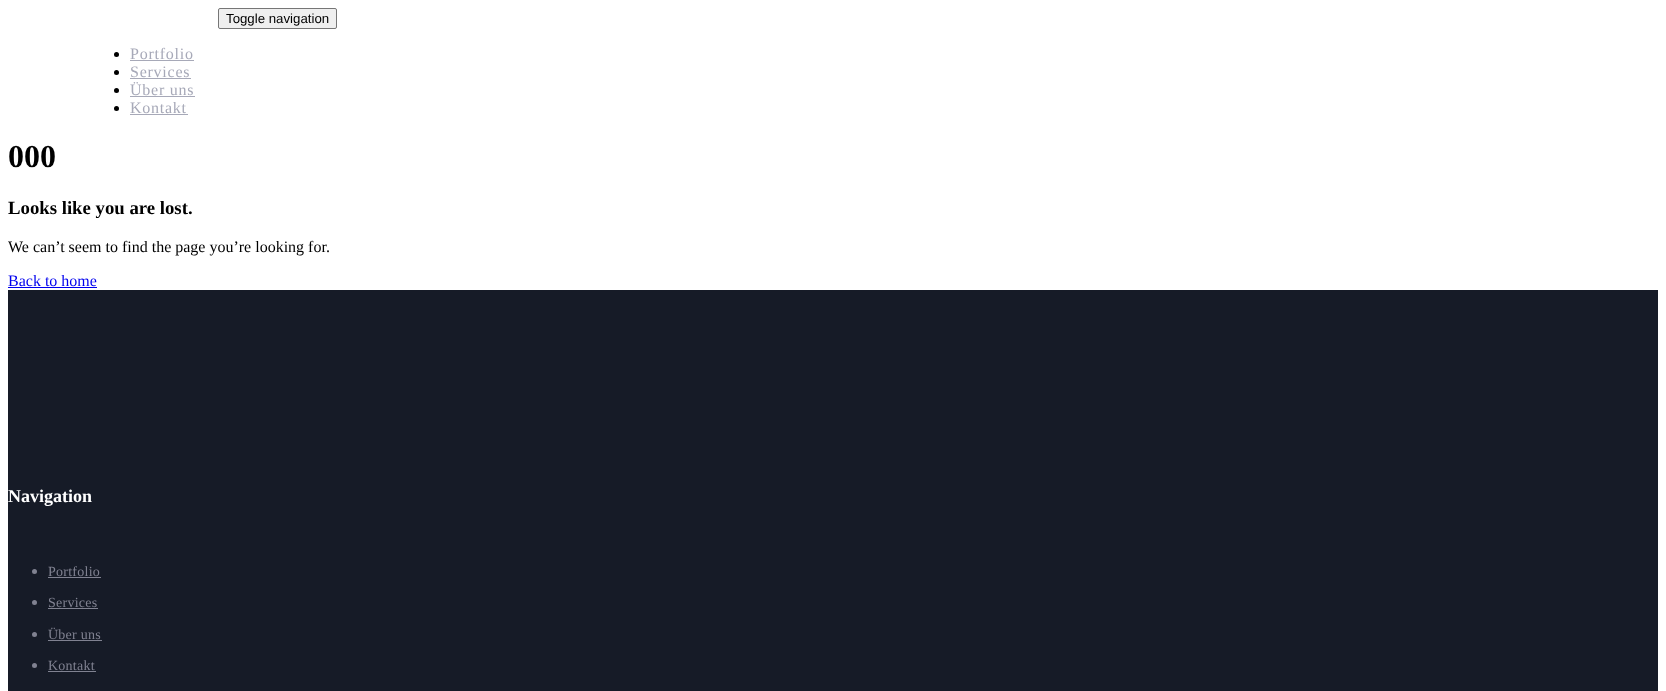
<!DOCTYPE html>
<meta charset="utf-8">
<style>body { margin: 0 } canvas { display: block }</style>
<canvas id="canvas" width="1666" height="691"></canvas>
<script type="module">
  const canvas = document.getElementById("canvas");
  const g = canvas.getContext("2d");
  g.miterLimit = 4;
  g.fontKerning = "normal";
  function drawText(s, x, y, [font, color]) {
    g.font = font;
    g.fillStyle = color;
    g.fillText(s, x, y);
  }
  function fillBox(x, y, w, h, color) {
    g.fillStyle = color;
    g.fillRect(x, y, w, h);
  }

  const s1 = ["13.25px Liberation Sans", "#000000"];
  const s2 = ["16px Liberation Serif", "#A7A9B8"];
  const s3 = ["bold 32px Liberation Serif", "#000000"];
  const s4 = ["bold 18.75px Liberation Serif", "#000000"];
  const s5 = ["16px Liberation Serif", "#000000"];
  const s6 = ["16px Liberation Serif", "#0000EE"];
  const s7 = ["bold 18px Liberation Serif", "#FFFFFF"];
  const s8 = ["14px Liberation Serif", "#808291"];

  fillBox(0, 0, 1666, 691, "#FFFFFF");
  g.fillStyle = "#EFEFEF";
  g.beginPath();
  g.roundRect(218.5, 8.5, 118, 20, 1.5);
  g.fill();
  g.strokeStyle = "#767676";
  g.stroke();
  drawText("Toggle navigation", 226, 23, s1);
  g.beginPath();
  g.arc(116.5, 54.5, 2.5, 0, Math.PI * 2);
  g.fill();
  g.letterSpacing = "0.75px";
  drawText("Portfolio", 130, 59, s2);
  fillBox(130, 60, 64, 1, "#A7A9B8");
  g.fillStyle = "#000000";
  g.beginPath();
  g.arc(116.5, 72.5, 2.5, 0, Math.PI * 2);
  g.fill();
  drawText("Services", 130, 77, s2);
  fillBox(130, 78, 61, 1, "#A7A9B8");
  g.fillStyle = "#000000";
  g.beginPath();
  g.arc(116.5, 90.5, 2.5, 0, Math.PI * 2);
  g.fill();
  drawText("Über uns", 130, 95, s2);
  fillBox(130, 96, 65, 1, "#A7A9B8");
  g.fillStyle = "#000000";
  g.beginPath();
  g.arc(116.5, 108.5, 2.5, 0, Math.PI * 2);
  g.fill();
  drawText("Kontakt", 130, 113, s2);
  fillBox(130, 114, 58, 1, "#A7A9B8");
  g.letterSpacing = "0px";
  drawText("000", 8, 167, s3);
  drawText("Looks like you are lost.", 8, 214, s4);
  drawText("We can’t seem to find the page you’re looking for.", 8, 252, s5);
  drawText("Back to home", 8, 286, s6);
  fillBox(8, 287, 89, 1, "#0000EE");
  fillBox(8, 290, 1650, 401, "#161B27");
  drawText("Navigation", 8, 502, s7);
  g.fillStyle = "#808291";
  g.beginPath();
  g.arc(34.5, 571.5, 2.5, 0, Math.PI * 2);
  g.fill();
  g.letterSpacing = "0.25px";
  drawText("Portfolio", 48, 576, s8);
  fillBox(48, 577, 53, 1, "#808291");
  g.beginPath();
  g.arc(34.5, 602.5, 2.5, 0, Math.PI * 2);
  g.fill();
  drawText("Services", 48, 607, s8);
  fillBox(48, 608, 50, 1, "#808291");
  g.beginPath();
  g.arc(34.5, 634.5, 2.5, 0, Math.PI * 2);
  g.fill();
  drawText("Über uns", 48, 639, s8);
  fillBox(48, 640, 54, 1, "#808291");
  g.beginPath();
  g.arc(34.5, 665.5, 2.5, 0, Math.PI * 2);
  g.fill();
  drawText("Kontakt", 48, 670, s8);
  fillBox(48, 671, 48, 1, "#808291");
</script>
